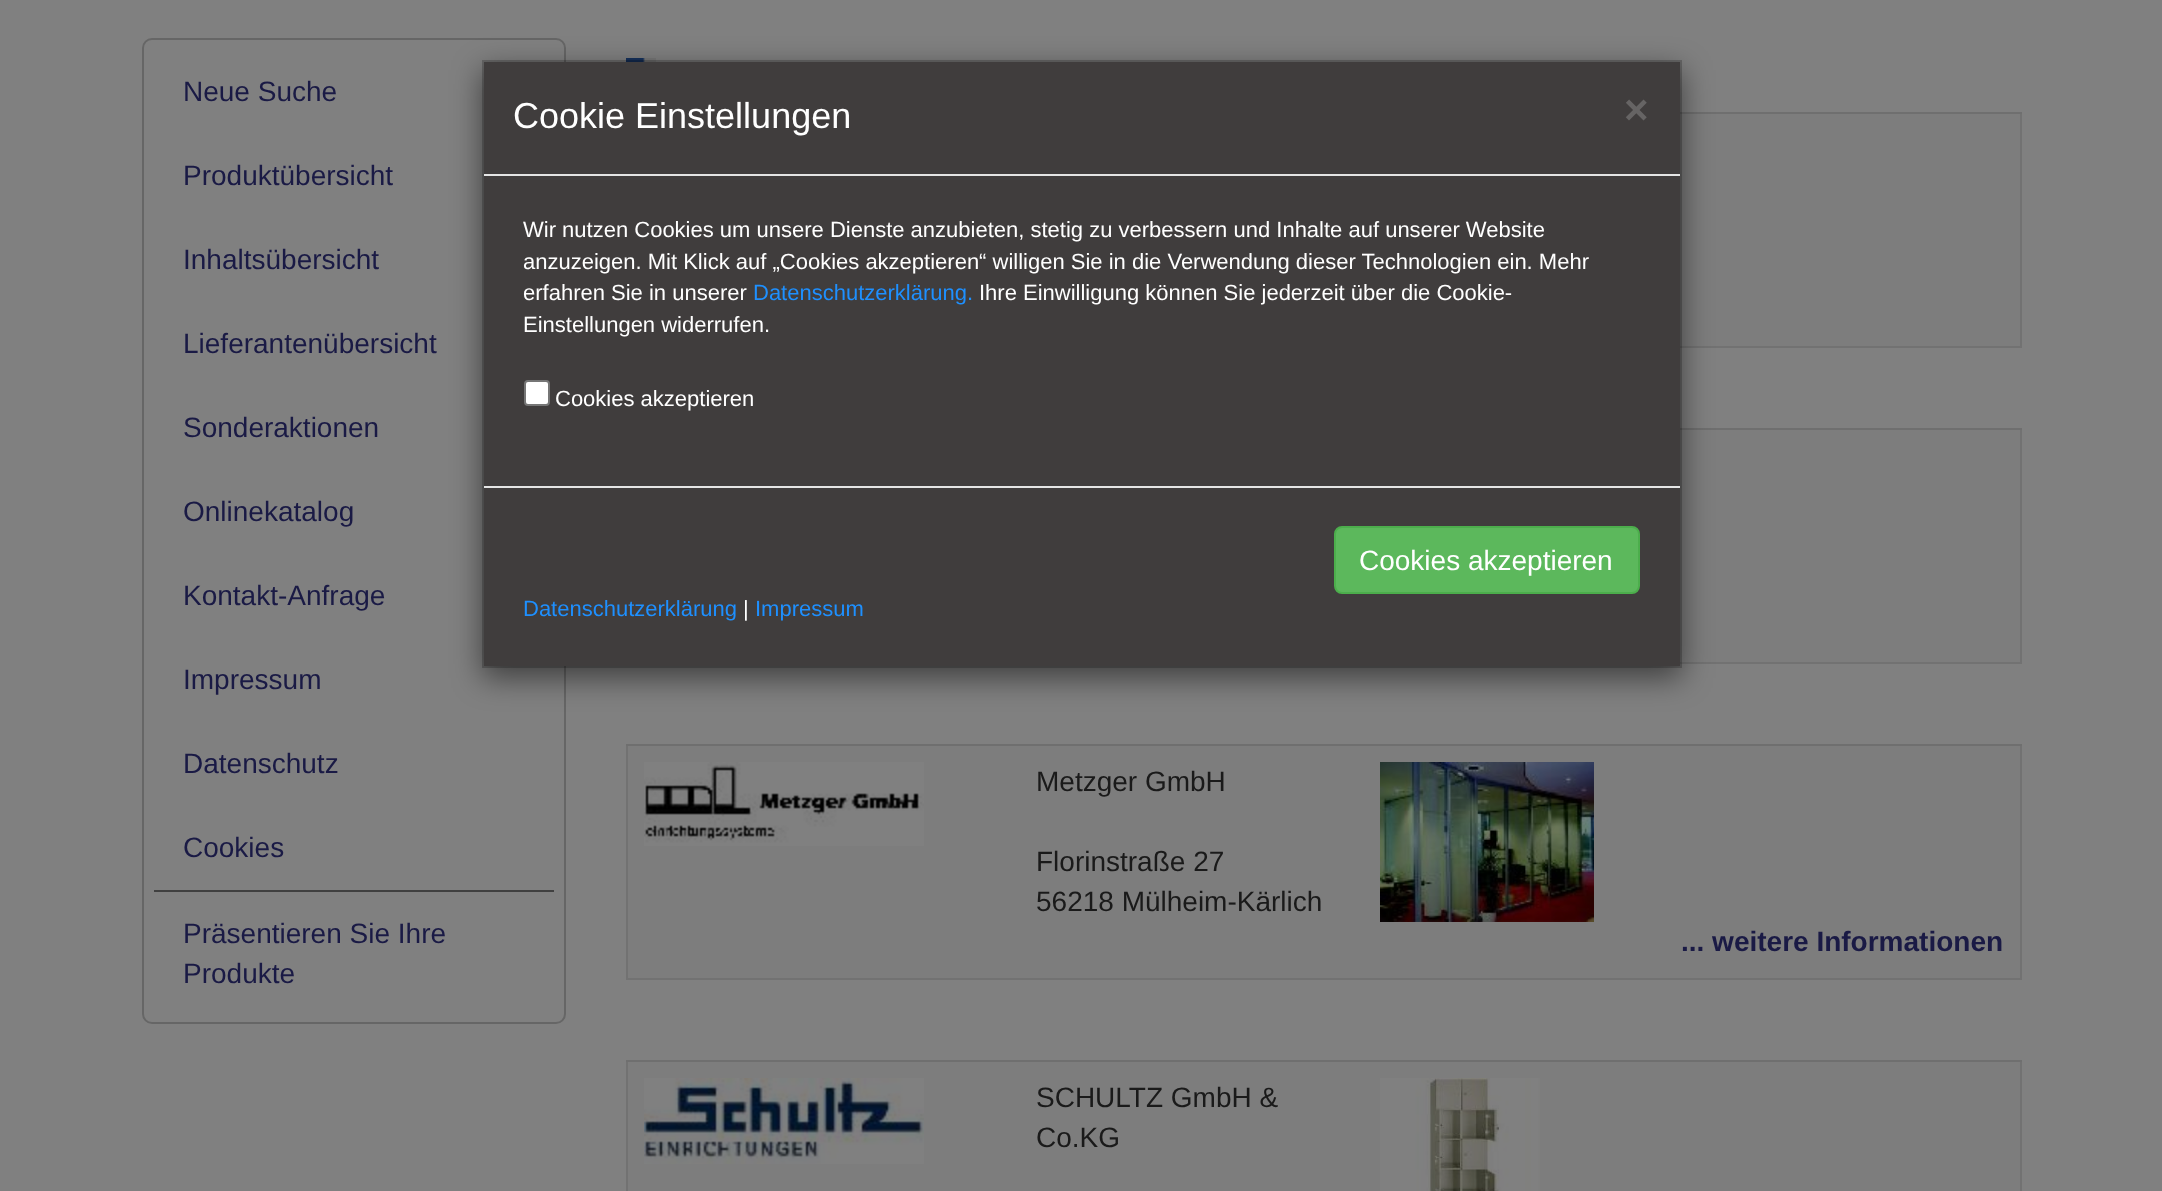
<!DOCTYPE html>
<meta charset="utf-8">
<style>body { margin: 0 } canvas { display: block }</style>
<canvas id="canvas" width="2162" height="1191"></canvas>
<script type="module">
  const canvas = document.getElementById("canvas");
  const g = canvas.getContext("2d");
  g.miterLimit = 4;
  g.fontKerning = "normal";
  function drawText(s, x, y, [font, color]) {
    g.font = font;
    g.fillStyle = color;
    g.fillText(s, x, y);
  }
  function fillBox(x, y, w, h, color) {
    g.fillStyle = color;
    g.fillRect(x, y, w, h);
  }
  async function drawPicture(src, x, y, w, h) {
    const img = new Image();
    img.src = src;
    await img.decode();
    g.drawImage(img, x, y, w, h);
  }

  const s1 = ["28px Liberation Sans", "#1A1A45"];
  const s2 = ["28px Liberation Sans", "#1A1A1A"];
  const s3 = ["bold 28px Liberation Sans", "#1A1A45"];
  const s4 = ["36px Liberation Sans", "#FFFFFF"];
  const s5 = ["bold 42px Liberation Sans", "#666464"];
  const s6 = ["22px Liberation Sans", "#FFFFFF"];
  const s7 = ["22px Liberation Sans", "#1E90FF"];
  const s8 = ["28px Liberation Sans", "#FFFFFF"];

  fillBox(0, 0, 2162, 1191, "#808080");
  g.beginPath();
  g.roundRect(143, 39, 422, 984, 9);
  g.strokeStyle = "#666666";
  g.lineWidth = 2;
  g.stroke();
  drawText("Neue Suche", 183, 101, s1);
  drawText("Produktübersicht", 183, 185, s1);
  drawText("Inhaltsübersicht", 183, 269, s1);
  drawText("Lieferantenübersicht", 183, 353, s1);
  drawText("Sonderaktionen", 183, 437, s1);
  drawText("Onlinekatalog", 183, 521, s1);
  drawText("Kontakt-Anfrage", 183, 605, s1);
  drawText("Impressum", 183, 689, s1);
  drawText("Datenschutz", 183, 773, s1);
  drawText("Cookies", 183, 857, s1);
  fillBox(154, 890, 400, 2, "#404040");
  drawText("Präsentieren Sie Ihre", 183, 943, s1);
  drawText("Produkte", 183, 983, s1);
  await drawPicture("pic1.png", 626, 58, 30, 4);
  fillBox(2020, 112, 2, 236, "#727272");
  fillBox(1680, 346, 342, 2, "#727272");
  fillBox(1680, 114, 340, 232, "#7D7D7D");
  fillBox(1680, 112, 342, 2, "#6F6F6F");
  fillBox(2020, 428, 2, 236, "#727272");
  fillBox(1680, 662, 342, 2, "#727272");
  fillBox(1680, 430, 340, 232, "#7D7D7D");
  fillBox(1680, 428, 342, 2, "#6F6F6F");
  fillBox(2020, 744, 2, 236, "#727272");
  fillBox(626, 978, 1396, 2, "#727272");
  fillBox(626, 744, 2, 236, "#727272");
  fillBox(628, 746, 1392, 232, "#7D7D7D");
  await drawPicture("pic2.png", 644, 762, 280, 84);
  drawText("Metzger GmbH", 1036, 791, s2);
  drawText("Florinstraße 27", 1036, 871, s2);
  drawText("56218 Mülheim-Kärlich", 1036, 911, s2);
  fillBox(626, 744, 1396, 2, "#6F6F6F");
  await drawPicture("pic3.png", 1380, 762, 214, 160);
  drawText("... weitere Informationen", 1681, 951, s3);
  fillBox(2020, 1060, 2, 131, "#727272");
  fillBox(626, 1060, 2, 131, "#727272");
  fillBox(626, 1060, 1396, 2, "#6F6F6F");
  fillBox(628, 1062, 1392, 129, "#7D7D7D");
  await drawPicture("pic4.png", 1380, 1078, 160, 113);
  await drawPicture("pic5.png", 644, 1078, 280, 86);
  drawText("SCHULTZ GmbH &", 1036, 1107, s2);
  drawText("Co.KG", 1036, 1147, s2);
  g.fillStyle = "rgba(0, 0, 0, 0.5)";
  g.filter = "blur(15px)";
  g.beginPath();
  g.rect(482, 70, 1200, 608);
  g.fill();
  g.filter = "none";
  fillBox(484, 62, 1196, 604, "#403D3D");
  g.strokeStyle = "rgba(0, 0, 0, 0.2)";
  g.strokeRect(483, 61, 1198, 606);
  fillBox(484, 174, 1196, 2, "#E5E5E5");
  drawText("Cookie Einstellungen", 513, 128, s4);
  drawText("×", 1624, 124, s5);
  drawText("Wir nutzen Cookies um unsere Dienste anzubieten, stetig zu verbessern und Inhalte auf unserer Website", 523, 237, s6);
  drawText("anzuzeigen. Mit Klick auf „Cookies akzeptieren“ willigen Sie in die Verwendung dieser Technologien ein. Mehr", 523, 269, s6);
  drawText("erfahren Sie in unserer", 523, 300, s6);
  drawText("Datenschutzerklärung.", 753, 300, s7);
  drawText("Ihre Einwilligung können Sie jederzeit über die Cookie-", 979, 300, s6);
  drawText("Einstellungen widerrufen.", 523, 332, s6);
  g.beginPath();
  g.roundRect(525, 381, 24, 24, 3);
  g.fill();
  g.strokeStyle = "#767676";
  g.stroke();
  drawText("Cookies akzeptieren", 555, 406, s6);
  fillBox(484, 486, 1196, 2, "#E5E5E5");
  g.fillStyle = "#5CB85C";
  g.beginPath();
  g.roundRect(1335, 527, 304, 66, 7);
  g.fill();
  g.strokeStyle = "#4CAE4C";
  g.stroke();
  drawText("Cookies akzeptieren", 1359, 570, s8);
  drawText("Datenschutzerklärung", 523, 616, s7);
  drawText("|", 743, 616, s6);
  drawText("Impressum", 755, 616, s7);
</script>
